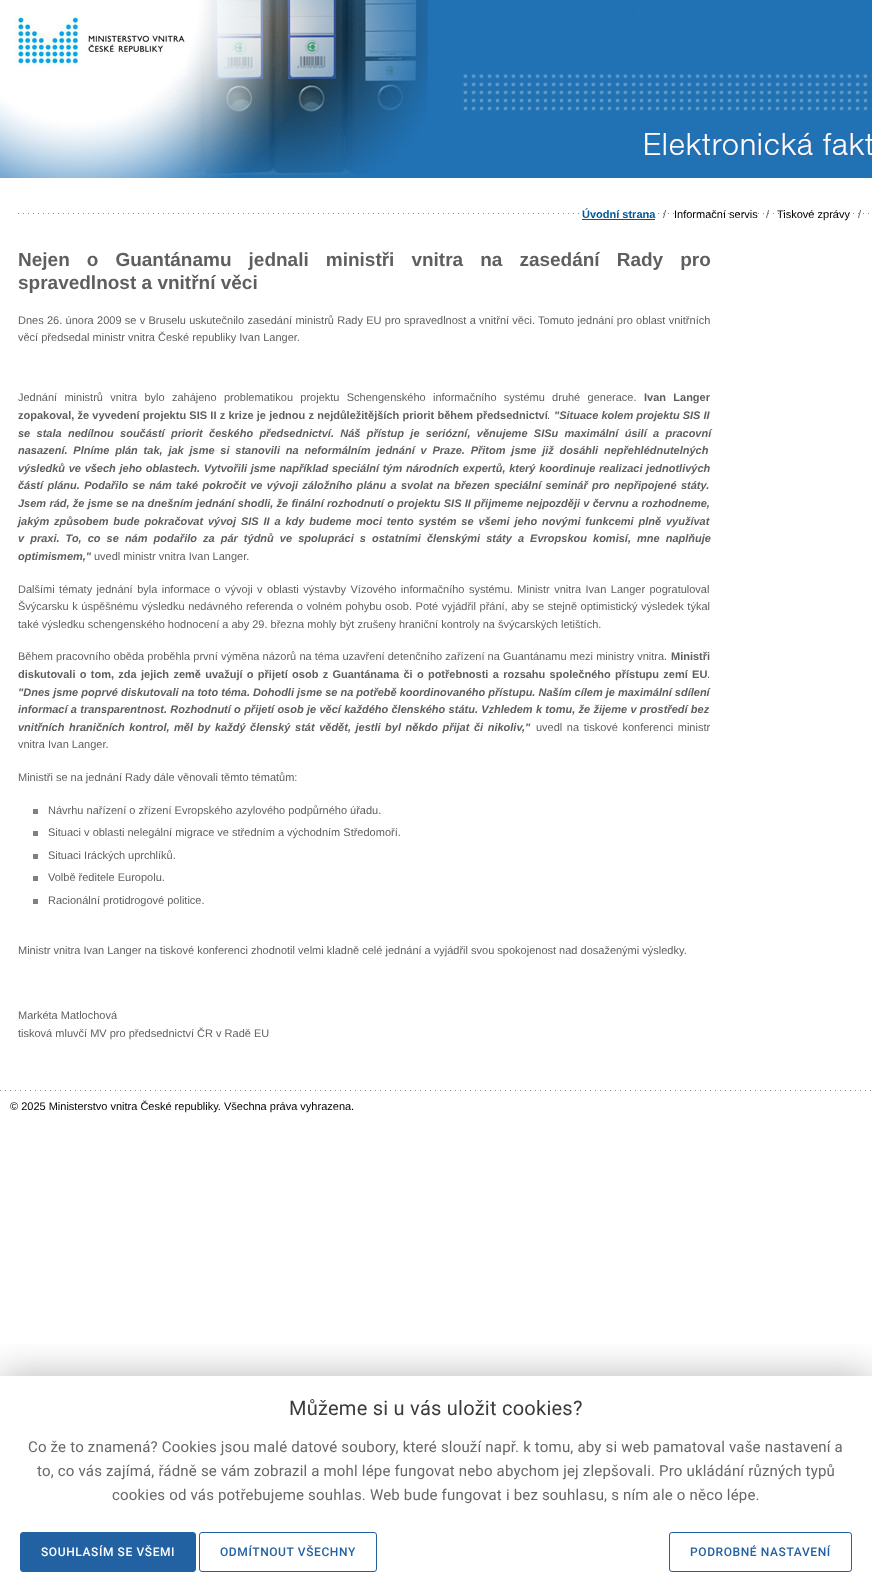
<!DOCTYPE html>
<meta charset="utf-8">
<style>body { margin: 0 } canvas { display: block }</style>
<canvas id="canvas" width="872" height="1592"></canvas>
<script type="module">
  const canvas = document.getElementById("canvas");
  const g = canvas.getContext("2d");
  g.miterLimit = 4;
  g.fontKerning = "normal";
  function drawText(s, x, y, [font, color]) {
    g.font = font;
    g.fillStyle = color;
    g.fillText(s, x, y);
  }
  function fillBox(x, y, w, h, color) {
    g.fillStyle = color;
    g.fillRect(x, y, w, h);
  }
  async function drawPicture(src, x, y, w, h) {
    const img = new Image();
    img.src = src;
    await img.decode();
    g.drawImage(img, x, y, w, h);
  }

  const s1 = ["bold 11px Liberation Sans", "#00599B"];
  const s2 = ["11px Liberation Sans", "#5F5F5F"];
  const s3 = ["11px Liberation Sans", "#000000"];
  const s4 = ["bold 19px Liberation Sans", "#5F5F5F"];
  const s5 = ["bold 11px Liberation Sans", "#5F5F5F"];
  const s6 = ["italic bold 11px Liberation Sans", "#5F5F5F"];
  const s7 = ["20px Roboto", "#3B3B3B"];
  const s8 = ["15px Roboto", "#686868"];
  const s9 = ["500 12px Roboto", "#FFFFFF"];
  const s10 = ["500 12px Roboto", "#2362A2"];

  fillBox(0, 0, 872, 1592, "#FFFFFF");
  await drawPicture("pic1.png", 0, 0, 872, 178);
  await drawPicture("pic2.png", 18, 213, 851, 1);
  drawText("Úvodní strana", 582, 218, s1);
  fillBox(582, 219, 73, 1, "#00599B");
  drawText("/", 663, 218, s2);
  drawText("Informační servis", 674, 218, s3);
  drawText("/", 766, 218, s2);
  drawText("Tiskové zprávy", 777, 218, s3);
  drawText("/", 858, 218, s2);
  g.wordSpacing = "11.75px";
  drawText("Nejen o Guantánamu jednali ministři vnitra na zasedání Rady pro", 18, 266, s4);
  g.wordSpacing = "0px";
  drawText("spravedlnost a vnitřní věci", 18, 289, s4);
  g.wordSpacing = "0.25px";
  drawText("Dnes 26. února 2009 se v Bruselu uskutečnilo zasedání ministrů Rady EU pro spravedlnost a vnitřní věci. Tomuto jednání pro oblast vnitřních", 18, 324, s2);
  g.wordSpacing = "0px";
  drawText("věcí předsedal ministr vnitra České republiky Ivan Langer.", 18, 341, s2);
  g.wordSpacing = "4.25px";
  drawText("Jednání ministrů vnitra bylo zahájeno problematikou projektu Schengenského informačního systému druhé generace.", 18, 401, s2);
  drawText("Ivan Langer", 644, 401, s5);
  g.wordSpacing = "0.2px";
  drawText("zopakoval, že vyvedení projektu SIS II z krize je jednou z nejdůležitějších priorit během předsednictví", 18, 419, s5);
  g.wordSpacing = "0px";
  drawText(".", 547, 419, s2);
  drawText("\"Situace kolem projektu SIS II", 554, 419, s6);
  g.wordSpacing = "3.25px";
  drawText("se stala nedílnou součástí priorit českého předsednictví. Náš přístup je seriózní, věnujeme SISu maximální úsilí a pracovní", 18, 437, s6);
  g.wordSpacing = "2.75px";
  drawText("nasazení. Plníme plán tak, jak jsme si stanovili na neformálním jednání v Praze. Přitom jsme již dosáhli nepřehlédnutelných", 18, 454, s6);
  g.wordSpacing = "0.6px";
  drawText("výsledků ve všech jeho oblastech. Vytvořili jsme například speciální tým národních expertů, který koordinuje realizaci jednotlivých", 18, 472, s6);
  g.wordSpacing = "1.3px";
  drawText("částí plánu. Podařilo se nám také pokročit ve vývoji záložního plánu a svolat na březen speciální seminář pro nepřipojené státy.", 18, 489, s6);
  g.wordSpacing = "0.2px";
  drawText("Jsem rád, že jsme se na dnešním jednání shodli, že finální rozhodnutí o projektu SIS II přijmeme nejpozději v červnu a rozhodneme,", 18, 507, s6);
  g.wordSpacing = "1.8px";
  drawText("jakým způsobem bude pokračovat vývoj SIS II a kdy budeme moci tento systém se všemi jeho novými funkcemi plně využívat", 18, 525, s6);
  g.wordSpacing = "3px";
  drawText("v praxi. To, co se nám podařilo za pár týdnů ve spolupráci s ostatními členskými státy a Evropskou komisí, mne naplňuje", 18, 542, s6);
  g.wordSpacing = "0px";
  drawText("optimismem,\"", 18, 560, s6);
  drawText("uvedl ministr vnitra Ivan Langer.", 94, 560, s2);
  g.wordSpacing = "1.4px";
  drawText("Dalšími tématy jednání byla informace o vývoji v oblasti výstavby Vízového informačního systému. Ministr vnitra Ivan Langer pogratuloval", 18, 593, s2);
  g.wordSpacing = "0.5px";
  drawText("Švýcarsku k úspěšnému výsledku nedávného referenda o volném pohybu osob. Poté vyjádřil přání, aby se stejně optimistický výsledek týkal", 18, 610, s2);
  g.wordSpacing = "0px";
  drawText("také výsledku schengenského hodnocení a aby 29. března mohly být zrušeny hraniční kontroly na švýcarských letištích.", 18, 628, s2);
  g.wordSpacing = "0.1px";
  drawText("Během pracovního oběda proběhla první výměna názorů na téma uzavření detenčního zařízení na Guantánamu mezi ministry vnitra.", 18, 660, s2);
  g.wordSpacing = "0px";
  drawText("Ministři", 671, 660, s5);
  g.wordSpacing = "1.25px";
  drawText("diskutovali o tom, zda jejich země uvažují o přijetí osob z Guantánama či o potřebnosti a rozsahu společného přístupu zemí EU", 18, 678, s5);
  g.wordSpacing = "0px";
  drawText(".", 707, 678, s2);
  drawText("\"Dnes jsme poprvé diskutovali na toto téma. Dohodli jsme se na potřebě koordinovaného přístupu. Naším cílem je maximální sdílení", 18, 696, s6);
  g.wordSpacing = "0.25px";
  drawText("informací a transparentnost. Rozhodnutí o přijetí osob je věcí každého členského státu. Vzhledem k tomu, že žijeme v prostředí bez", 18, 713, s6);
  g.wordSpacing = "1.5px";
  drawText("vnitřních hraničních kontrol, měl by každý členský stát vědět, jestli byl někdo přijat či nikoliv,\"", 18, 731, s6);
  drawText("uvedl na tiskové konferenci ministr", 536, 731, s2);
  g.wordSpacing = "0px";
  drawText("vnitra Ivan Langer.", 18, 748, s2);
  drawText("Ministři se na jednání Rady dále věnovali těmto tématům:", 18, 781, s2);
  fillBox(33, 809, 5, 5, "#818181");
  drawText("Návrhu nařízení o zřízení Evropského azylového podpůrného úřadu.", 48, 814, s2);
  fillBox(33, 831, 5, 5, "#818181");
  drawText("Situaci v oblasti nelegální migrace ve středním a východním Středomoří.", 48, 836, s2);
  fillBox(33, 854, 5, 5, "#818181");
  drawText("Situaci Iráckých uprchlíků.", 48, 859, s2);
  fillBox(33, 876, 5, 5, "#818181");
  drawText("Volbě ředitele Europolu.", 48, 881, s2);
  fillBox(33, 899, 5, 5, "#818181");
  drawText("Racionální protidrogové politice.", 48, 904, s2);
  drawText("Ministr vnitra Ivan Langer na tiskové konferenci zhodnotil velmi kladně celé jednání a vyjádřil svou spokojenost nad dosaženými výsledky.", 18, 954, s2);
  drawText("Markéta Matlochová", 18, 1019, s2);
  drawText("tisková mluvčí MV pro předsednictví ČR v Radě EU", 18, 1037, s2);
  await drawPicture("pic3.png", 0, 1090, 871, 1);
  drawText("© 2025 Ministerstvo vnitra České republiky. Všechna práva vyhrazena.", 10, 1110, s3);
  g.save();
  g.beginPath();
  g.rect(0, 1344, 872, 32);
  g.clip();
  g.fillStyle = "rgba(59, 59, 59, 0.4)";
  g.filter = "blur(20px)";
  g.beginPath();
  g.rect(0, 1377, 872, 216);
  g.fill();
  g.filter = "none";
  g.restore();
  g.letterSpacing = "0.25px";
  drawText("Můžeme si u vás uložit cookies?", 289, 1415, s7);
  g.letterSpacing = "0.19px";
  drawText("Co že to znamená? Cookies jsou malé datové soubory, které slouží např. k tomu, aby si web pamatoval vaše nastavení a", 28, 1452, s8);
  drawText("to, co vás zajímá, řádně se vám zobrazil a mohl lépe fungovat nebo abychom jej zlepšovali. Pro ukládání různých typů", 37, 1476, s8);
  drawText("cookies od vás potřebujeme souhlas. Web bude fungovat i bez souhlasu, s ním ale o něco lépe.", 112, 1500, s8);
  g.fillStyle = "#2362A2";
  g.beginPath();
  g.roundRect(20.5, 1532.5, 175, 39, 2.5);
  g.fill();
  g.strokeStyle = "#2362A2";
  g.stroke();
  g.letterSpacing = "0.6px";
  drawText("SOUHLASÍM SE VŠEMI", 41, 1556, s9);
  g.beginPath();
  g.roundRect(199.5, 1532.5, 177, 39, 2.5);
  g.stroke();
  drawText("ODMÍTNOUT VŠECHNY", 220, 1556, s10);
  g.beginPath();
  g.roundRect(669.5, 1532.5, 182, 39, 2.5);
  g.stroke();
  drawText("PODROBNÉ NASTAVENÍ", 690, 1556, s10);
</script>
